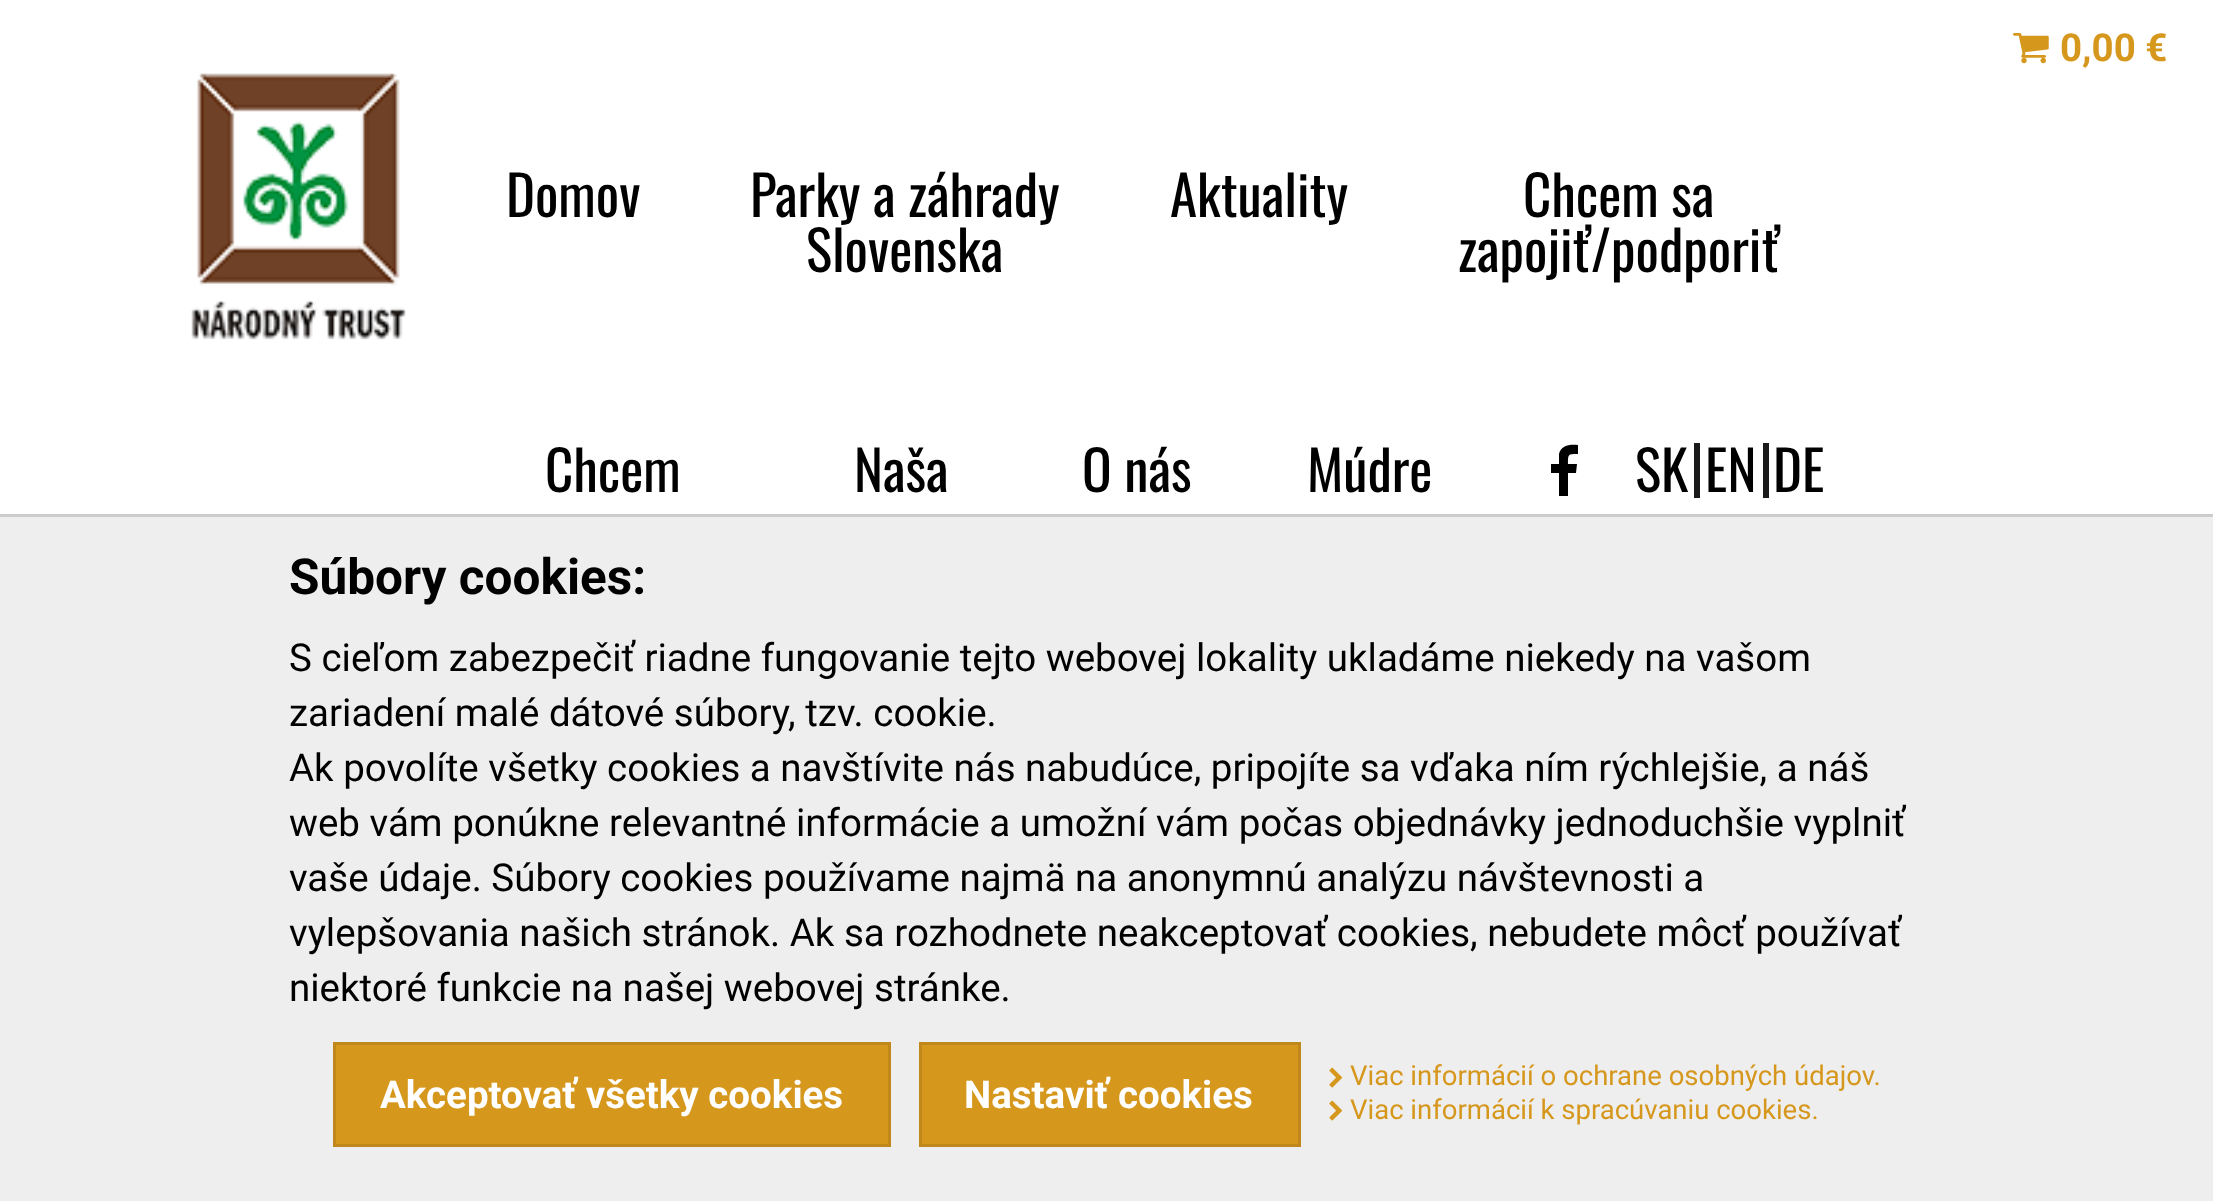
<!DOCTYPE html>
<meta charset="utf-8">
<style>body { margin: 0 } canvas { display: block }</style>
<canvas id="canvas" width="2213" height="1201"></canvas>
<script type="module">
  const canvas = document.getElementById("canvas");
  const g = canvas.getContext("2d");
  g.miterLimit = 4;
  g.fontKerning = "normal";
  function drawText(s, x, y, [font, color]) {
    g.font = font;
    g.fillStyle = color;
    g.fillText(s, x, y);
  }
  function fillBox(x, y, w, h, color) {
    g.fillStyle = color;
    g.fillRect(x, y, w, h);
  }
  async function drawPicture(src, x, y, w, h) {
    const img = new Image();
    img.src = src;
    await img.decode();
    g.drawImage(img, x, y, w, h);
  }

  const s1 = ["bold 38.5px Roboto", "#D6971D"];
  const s2 = ["55px Oswald", "#000000"];
  const s3 = ["bold 49.5px Roboto", "#000000"];
  const s4 = ["38.5px Roboto", "#000000"];
  const s5 = ["bold 38.5px Roboto", "#FFFFFF"];
  const s6 = ["27.5px Roboto", "#D6971D"];

  fillBox(0, 0, 2213, 1201, "#FFFFFF");
  await drawPicture("pic1.png", 2013, 33, 36, 31);
  drawText("0,00 €", 2060, 61, s1);
  await drawPicture("pic2.png", 191, 73, 215, 267);
  drawText("Domov", 506, 217, s2);
  drawText("Parky a záhrady", 750, 217, s2);
  drawText("Slovenska", 806, 272, s2);
  drawText("Aktuality", 1170, 217, s2);
  drawText("Chcem sa", 1523, 217, s2);
  drawText("zapojiť/podporiť", 1458, 272, s2);
  drawText("Chcem", 545, 492, s2);
  drawText("Naša", 854, 492, s2);
  drawText("O nás", 1082, 492, s2);
  drawText("Múdre", 1307, 492, s2);
  g.beginPath();
  g.moveTo(1578, 445);
  g.lineTo(1578, 454);
  g.bezierCurveTo(1568, 454, 1568, 454, 1568, 464);
  g.lineTo(1577, 464);
  g.lineTo(1576, 473);
  g.lineTo(1568, 473);
  g.lineTo(1568, 496);
  g.lineTo(1559, 496);
  g.lineTo(1559, 473);
  g.lineTo(1551, 473);
  g.lineTo(1551, 464);
  g.lineTo(1559, 464);
  g.lineTo(1559, 454);
  g.bezierCurveTo(1561, 445, 1570, 444, 1578, 445);
  g.closePath();
  g.fill();
  drawText("SK", 1635, 492, s2);
  fillBox(1694, 443, 6, 55, "#1A1A1A");
  drawText("EN", 1705, 492, s2);
  fillBox(1763, 443, 6, 55, "#1A1A1A");
  drawText("DE", 1773, 492, s2);
  fillBox(0, 517, 2213, 684, "#EEEEEE");
  fillBox(0, 514, 2213, 3, "#CCCCCC");
  drawText("Súbory cookies:", 289, 594, s3);
  drawText("S cieľom zabezpečiť riadne fungovanie tejto webovej lokality ukladáme niekedy na vašom", 289, 671, s4);
  drawText("zariadení malé dátové súbory, tzv. cookie.", 289, 726, s4);
  drawText("Ak povolíte všetky cookies a navštívite nás nabudúce, pripojíte sa vďaka ním rýchlejšie, a náš", 289, 781, s4);
  drawText("web vám ponúkne relevantné informácie a umožní vám počas objednávky jednoduchšie vyplniť", 289, 836, s4);
  drawText("vaše údaje. Súbory cookies používame najmä na anonymnú analýzu návštevnosti a", 289, 891, s4);
  drawText("vylepšovania našich stránok. Ak sa rozhodnete neakceptovať cookies, nebudete môcť používať", 289, 946, s4);
  drawText("niektoré funkcie na našej webovej stránke.", 289, 1001, s4);
  g.fillStyle = "#D6971D";
  g.beginPath();
  g.rect(334.5, 1043.5, 555, 102);
  g.fill();
  g.strokeStyle = "#C0871A";
  g.lineWidth = 3;
  g.stroke();
  drawText("Akceptovať všetky cookies", 380, 1108, s5);
  g.fillStyle = "#D6971D";
  g.beginPath();
  g.rect(920.5, 1043.5, 379, 102);
  g.fill();
  g.stroke();
  drawText("Nastaviť cookies", 964, 1108, s5);
  await drawPicture("pic3.png", 1329, 1067, 13, 21);
  drawText("Viac informácií o ochrane osobných údajov.", 1350, 1085, s6);
  await drawPicture("pic3.png", 1329, 1100, 13, 21);
  drawText("Viac informácií k spracúvaniu cookies.", 1350, 1119, s6);
</script>
